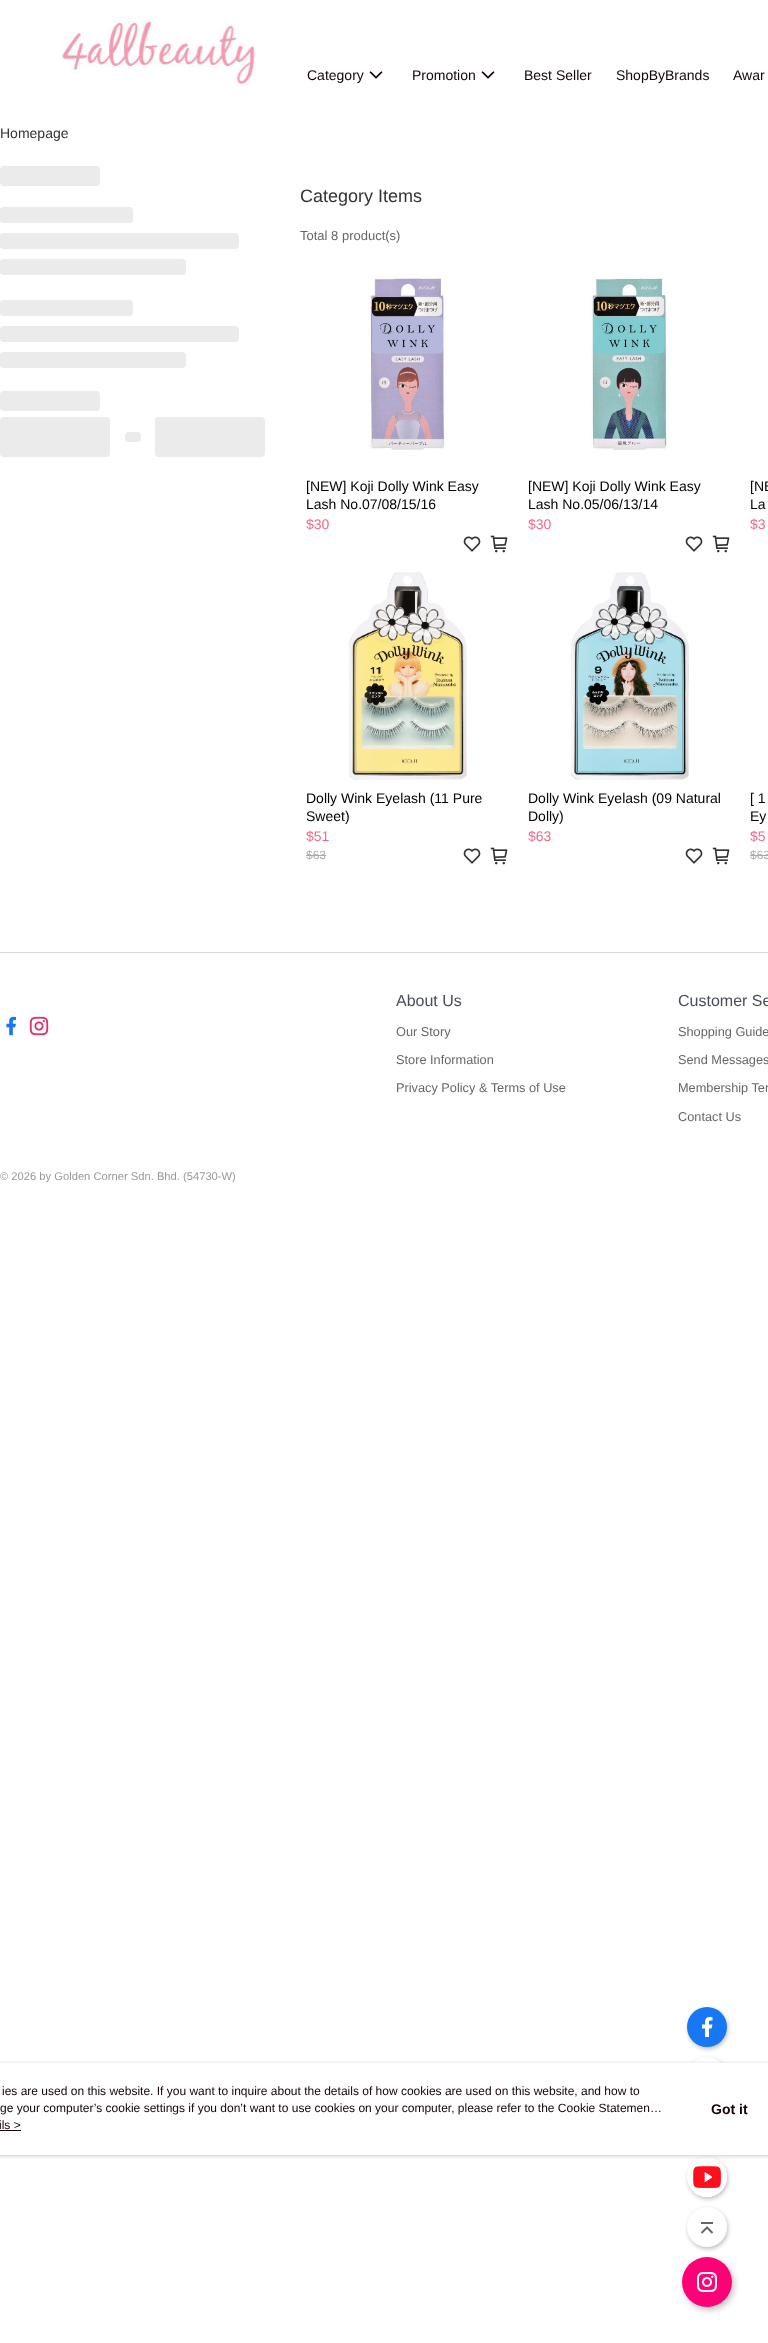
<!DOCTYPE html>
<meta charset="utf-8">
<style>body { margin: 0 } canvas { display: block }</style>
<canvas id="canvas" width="768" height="2343"></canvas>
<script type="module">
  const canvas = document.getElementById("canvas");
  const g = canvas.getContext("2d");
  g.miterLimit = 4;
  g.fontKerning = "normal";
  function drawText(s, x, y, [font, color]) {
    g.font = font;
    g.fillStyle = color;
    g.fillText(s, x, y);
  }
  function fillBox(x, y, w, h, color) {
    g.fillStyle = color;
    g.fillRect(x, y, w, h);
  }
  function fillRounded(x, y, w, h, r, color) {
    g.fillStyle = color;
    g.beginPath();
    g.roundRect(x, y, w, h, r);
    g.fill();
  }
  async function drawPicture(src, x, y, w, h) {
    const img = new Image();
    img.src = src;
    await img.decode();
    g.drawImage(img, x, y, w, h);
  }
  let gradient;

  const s1 = ["14px Liberation Sans", "#140308"];
  const s2 = ["14px Liberation Sans", "#333333"];
  const s3 = ["18px Liberation Sans", "#333333"];
  const s4 = ["13px Liberation Sans", "#666666"];
  const s5 = ["14px Liberation Sans", "#000000"];
  const s6 = ["14px Liberation Sans", "#F06B8B"];
  const s7 = ["12px Liberation Sans", "#AAAAAA"];
  const s8 = ["16px Liberation Sans", "#4A4E5C"];
  const s9 = ["12.75px Liberation Sans", "#666666"];
  const s10 = ["11.2px Liberation Sans", "#999999"];
  const s11 = ["12px Liberation Sans", "#140308"];
  const s12 = ["bold 14px Liberation Sans", "#140308"];

  fillBox(0, 0, 768, 2343, "#FFFFFF");
  await drawPicture("pic1.png", 60, 21, 196, 64);
  drawText("Category", 307, 80, s1);
  await drawPicture("pic2.png", 369, 71, 14, 8);
  drawText("Promotion", 412, 80, s1);
  await drawPicture("pic2.png", 481, 71, 14, 8);
  drawText("Best Seller", 524, 80, s1);
  drawText("ShopByBrands", 616, 80, s1);
  drawText("Awar", 733, 80, s1);
  g.fillStyle = "rgba(0, 0, 0, 0.25)";
  g.filter = "blur(2px)";
  g.beginPath();
  g.roundRect(688, 2009, 40, 40, 20);
  g.fill();
  g.filter = "none";
  g.fillStyle = "#1877F2";
  g.beginPath();
  g.arc(707, 2027, 20, 0, Math.PI * 2);
  g.fill();
  await drawPicture("pic3.png", 702, 2017, 11, 20);
  g.fillStyle = "rgba(0, 0, 0, 0.25)";
  g.filter = "blur(2px)";
  g.beginPath();
  g.roundRect(688, 2059, 40, 40, 20);
  g.fill();
  g.filter = "none";
  g.fillStyle = "#FFFFFF";
  g.beginPath();
  g.arc(707, 2077, 20, 0, Math.PI * 2);
  g.fill();
  g.fillStyle = "rgba(0, 0, 0, 0.25)";
  g.filter = "blur(2px)";
  g.beginPath();
  g.roundRect(688, 2159, 40, 40, 20);
  g.fill();
  g.filter = "none";
  g.fillStyle = "#FFFFFF";
  g.beginPath();
  g.arc(707, 2177, 20, 0, Math.PI * 2);
  g.fill();
  await drawPicture("pic4.png", 690, 2165, 37, 32);
  g.fillStyle = "rgba(0, 0, 0, 0.25)";
  g.filter = "blur(2px)";
  g.beginPath();
  g.roundRect(688, 2209, 40, 40, 20);
  g.fill();
  g.filter = "none";
  g.fillStyle = "#FFFFFF";
  g.beginPath();
  g.arc(707, 2227, 20, 0, Math.PI * 2);
  g.fill();
  await drawPicture("pic5.png", 700, 2222, 14, 12);
  g.fillStyle = "rgba(0, 0, 0, 0.25)";
  g.filter = "blur(3px)";
  g.beginPath();
  g.roundRect(684, 2260, 50, 50, 25);
  g.fill();
  g.filter = "none";
  g.fillStyle = "#FF0076";
  g.beginPath();
  g.arc(707, 2282, 25, 0, Math.PI * 2);
  g.fill();
  await drawPicture("pic6.png", 697, 2272, 20, 20);
  drawText("Homepage", 0, 138, s2);
  fillRounded(0, 166, 100, 20, 4, "#EBEBEB");
  fillRounded(0, 207, 133, 16, 4, "#EBEBEB");
  g.save();
  g.beginPath();
  g.roundRect(0, 207, 133, 16, 4);
  g.clip();
  gradient = g.createLinearGradient(-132, 215, 0.5, 215);
  gradient.addColorStop(0, "#EBEBEB");
  gradient.addColorStop(0.5, "#F5F5F5");
  gradient.addColorStop(1, "#EBEBEB");
  g.fillStyle = gradient;
  g.fillRect(0, 207, 1, 16);
  g.restore();
  fillRounded(0, 233, 239, 16, 4, "#EBEBEB");
  g.save();
  g.beginPath();
  g.roundRect(0, 233, 239, 16, 4);
  g.clip();
  gradient = g.createLinearGradient(-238, 241, 0.5, 241);
  gradient.addColorStop(0, "#EBEBEB");
  gradient.addColorStop(0.5, "#F5F5F5");
  gradient.addColorStop(1, "#EBEBEB");
  g.fillStyle = gradient;
  g.fillRect(0, 233, 1, 16);
  g.restore();
  fillRounded(0, 259, 186, 16, 4, "#EBEBEB");
  g.save();
  g.beginPath();
  g.roundRect(0, 259, 186, 16, 4);
  g.clip();
  gradient = g.createLinearGradient(-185, 267, 0.5, 267);
  gradient.addColorStop(0, "#EBEBEB");
  gradient.addColorStop(0.5, "#F5F5F5");
  gradient.addColorStop(1, "#EBEBEB");
  g.fillStyle = gradient;
  g.fillRect(0, 259, 1, 16);
  g.restore();
  fillRounded(0, 300, 133, 16, 4, "#EBEBEB");
  g.save();
  g.beginPath();
  g.roundRect(0, 300, 133, 16, 4);
  g.clip();
  gradient = g.createLinearGradient(-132, 308, 0.5, 308);
  gradient.addColorStop(0, "#EBEBEB");
  gradient.addColorStop(0.5, "#F5F5F5");
  gradient.addColorStop(1, "#EBEBEB");
  g.fillStyle = gradient;
  g.fillRect(0, 300, 1, 16);
  g.restore();
  fillRounded(0, 326, 239, 16, 4, "#EBEBEB");
  g.save();
  g.beginPath();
  g.roundRect(0, 326, 239, 16, 4);
  g.clip();
  gradient = g.createLinearGradient(-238, 334, 0.5, 334);
  gradient.addColorStop(0, "#EBEBEB");
  gradient.addColorStop(0.5, "#F5F5F5");
  gradient.addColorStop(1, "#EBEBEB");
  g.fillStyle = gradient;
  g.fillRect(0, 326, 1, 16);
  g.restore();
  fillRounded(0, 352, 186, 16, 4, "#EBEBEB");
  g.save();
  g.beginPath();
  g.roundRect(0, 352, 186, 16, 4);
  g.clip();
  gradient = g.createLinearGradient(-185, 360, 0.5, 360);
  gradient.addColorStop(0, "#EBEBEB");
  gradient.addColorStop(0.5, "#F5F5F5");
  gradient.addColorStop(1, "#EBEBEB");
  g.fillStyle = gradient;
  g.fillRect(0, 352, 1, 16);
  g.restore();
  fillRounded(0, 391, 100, 20, 4, "#EBEBEB");
  fillRounded(0, 417, 110, 40, 4, "#EBEBEB");
  fillRounded(125, 432, 16, 10, 4, "#EBEBEB");
  fillRounded(155, 417, 110, 40, 4, "#EBEBEB");
  drawText("Category Items", 300, 202, s3);
  drawText("Total 8 product(s)", 300, 240, s4);
  await drawPicture("pic7.png", 368, 274, 78, 177);
  drawText("[NEW] Koji Dolly Wink Easy", 306, 491, s5);
  drawText("Lash No.07/08/15/16", 306, 509, s5);
  drawText("$30", 306, 529, s6);
  await drawPicture("pic8.png", 463, 536, 18, 16);
  await drawPicture("pic9.png", 490, 535, 18, 18);
  await drawPicture("pic10.png", 590, 277, 78, 174);
  drawText("[NEW] Koji Dolly Wink Easy", 528, 491, s5);
  drawText("Lash No.05/06/13/14", 528, 509, s5);
  drawText("$30", 528, 529, s6);
  await drawPicture("pic8.png", 685, 536, 18, 16);
  await drawPicture("pic9.png", 712, 535, 18, 18);
  drawText("[NE", 750, 491, s5);
  drawText("La", 750, 509, s5);
  drawText("$3", 750, 529, s6);
  await drawPicture("pic11.png", 348, 572, 119, 208);
  drawText("Dolly Wink Eyelash (11 Pure", 306, 803, s5);
  drawText("Sweet)", 306, 821, s5);
  drawText("$51", 306, 841, s6);
  drawText("$63", 306, 859, s7);
  fillBox(306, 855, 20, 1, "#AAAAAA");
  await drawPicture("pic8.png", 463, 848, 18, 16);
  await drawPicture("pic9.png", 490, 847, 18, 18);
  await drawPicture("pic12.png", 570, 572, 119, 208);
  drawText("Dolly Wink Eyelash (09 Natural", 528, 803, s5);
  drawText("Dolly)", 528, 821, s5);
  drawText("$63", 528, 841, s6);
  await drawPicture("pic8.png", 685, 848, 18, 16);
  await drawPicture("pic9.png", 712, 847, 18, 18);
  drawText("[ 1", 750, 803, s5);
  drawText("Ey", 750, 821, s5);
  drawText("$5", 750, 841, s6);
  drawText("$63", 750, 859, s7);
  fillBox(750, 855, 18, 1, "#AAAAAA");
  fillBox(0, 952, 768, 1, "#DADADA");
  await drawPicture("pic13.png", 6, 1016, 11, 20);
  await drawPicture("pic14.png", 29, 1016, 20, 20);
  drawText("About Us", 396, 1006, s8);
  drawText("Our Story", 396, 1036, s9);
  drawText("Store Information", 396, 1064, s9);
  drawText("Privacy Policy & Terms of Use", 396, 1092, s9);
  drawText("Customer Se", 678, 1006, s8);
  drawText("Shopping Guide", 678, 1036, s9);
  drawText("Send Messages", 678, 1064, s9);
  drawText("Membership Ter", 678, 1092, s9);
  drawText("Contact Us", 678, 1121, s9);
  drawText("© 2026 by Golden Corner Sdn. Bhd. (54730-W)", 0, 1180, s10);
  g.fillStyle = "rgba(151, 151, 151, 0.5)";
  g.filter = "blur(2px)";
  g.beginPath();
  g.roundRect(-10, 2064, 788, 92, 4);
  g.fill();
  g.filter = "none";
  fillBox(0, 2063, 768, 92, "#FFFFFF");
  drawText("ies are used on this website. If you want to inquire about the details of how cookies are used on this website, and how to", 2, 2095, s11);
  drawText("ge your computer’s cookie settings if you don’t want to use cookies on your computer, please refer to the Cookie Statemen…", 0, 2112, s11);
  drawText("ils >", -1, 2129, s11);
  fillBox(0, 2130, 21, 1, "#140308");
  drawText("Got it", 711, 2114, s12);
</script>
